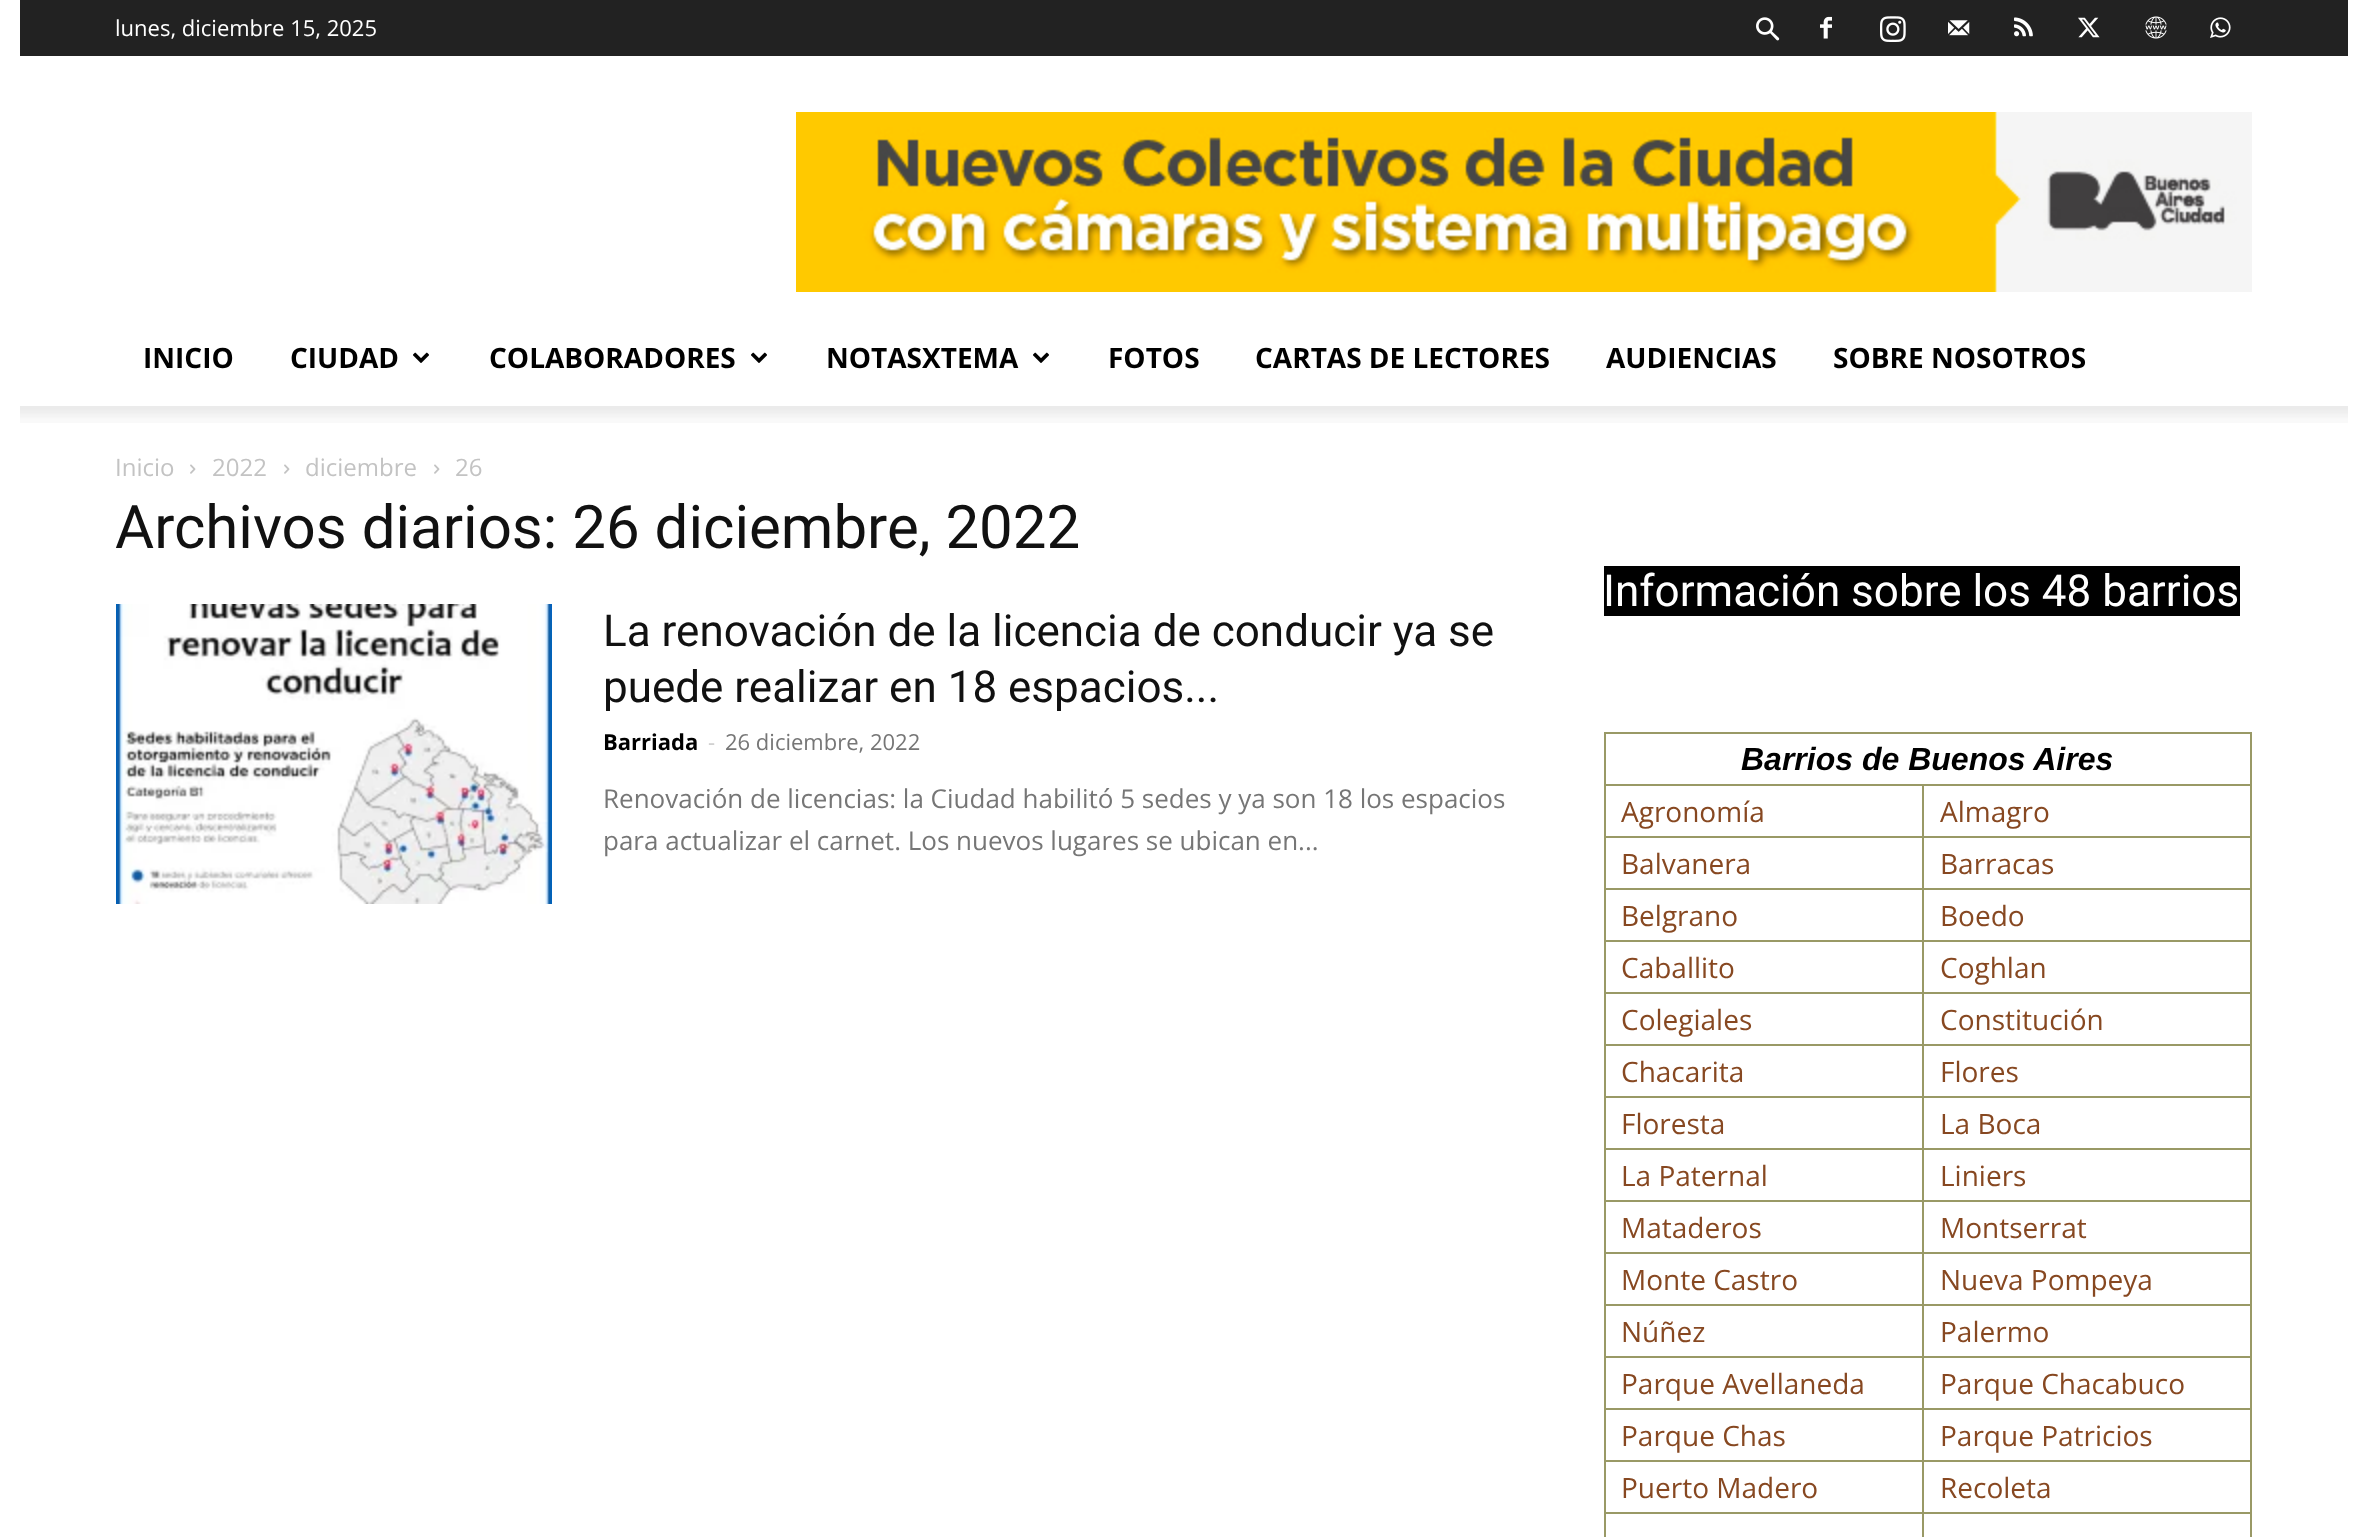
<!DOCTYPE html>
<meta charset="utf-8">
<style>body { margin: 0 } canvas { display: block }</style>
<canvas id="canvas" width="2365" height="1537"></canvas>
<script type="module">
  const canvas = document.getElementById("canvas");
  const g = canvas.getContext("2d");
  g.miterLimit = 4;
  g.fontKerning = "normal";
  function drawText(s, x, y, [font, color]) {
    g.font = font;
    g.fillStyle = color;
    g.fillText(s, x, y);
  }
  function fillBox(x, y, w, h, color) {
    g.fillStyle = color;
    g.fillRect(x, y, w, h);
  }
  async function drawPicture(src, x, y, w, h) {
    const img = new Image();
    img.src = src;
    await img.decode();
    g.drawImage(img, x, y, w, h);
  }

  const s1 = ["22px Open Sans", "#FFFFFF"];
  const s2 = ["bold 28px Open Sans", "#000000"];
  const s3 = ["24px Open Sans", "#C3C3C3"];
  const s4 = ["60px Roboto", "#111111"];
  const s5 = ["44px Roboto", "#111111"];
  const s6 = ["bold 22px Open Sans", "#000000"];
  const s7 = ["22px Open Sans", "#CCCCCC"];
  const s8 = ["22px Open Sans", "#767676"];
  const s9 = ["26px Open Sans", "#767676"];
  const s10 = ["44px Roboto", "#FFFFFF"];
  const s11 = ["italic bold 32px Liberation Sans", "#000000"];
  const s12 = ["28px Open Sans", "#874821"];

  fillBox(0, 0, 2365, 1537, "#FFFFFF");
  fillBox(20, 0, 2328, 56, "#222222");
  drawText("lunes, diciembre 15, 2025", 115, 36, s1);
  await drawPicture("pic1.png", 1756, 17, 24, 24);
  await drawPicture("pic2.png", 1820, 16, 12, 23);
  await drawPicture("pic3.png", 1880, 16, 26, 26);
  await drawPicture("pic4.png", 1948, 20, 22, 16);
  await drawPicture("pic5.png", 2014, 17, 19, 20);
  await drawPicture("pic6.png", 2078, 17, 22, 21);
  await drawPicture("pic7.png", 2145, 16, 22, 23);
  await drawPicture("pic8.png", 2210, 17, 21, 21);
  await drawPicture("pic9.png", 796, 112, 1456, 180);
  drawText("INICIO", 143, 368, s2);
  drawText("CIUDAD", 290, 368, s2);
  await drawPicture("pic10.png", 413, 352, 16, 11);
  drawText("COLABORADORES", 489, 368, s2);
  await drawPicture("pic10.png", 751, 352, 16, 11);
  drawText("NOTASXTEMA", 826, 368, s2);
  await drawPicture("pic10.png", 1033, 352, 16, 11);
  drawText("FOTOS", 1108, 368, s2);
  drawText("CARTAS DE LECTORES", 1255, 368, s2);
  drawText("AUDIENCIAS", 1606, 368, s2);
  drawText("SOBRE NOSOTROS", 1833, 368, s2);
  await drawPicture("pic11.png", 20, 406, 2328, 17);
  drawText("Inicio", 115, 476, s3);
  await drawPicture("pic12.png", 190, 464, 6, 10);
  drawText("2022", 212, 476, s3);
  await drawPicture("pic12.png", 284, 464, 6, 10);
  drawText("diciembre", 305, 476, s3);
  await drawPicture("pic12.png", 434, 464, 6, 10);
  drawText("26", 455, 476, s3);
  drawText("Archivos diarios: 26 diciembre, 2022", 115, 548, s4);
  await drawPicture("pic13.png", 116, 604, 436, 300);
  drawText("La renovación de la licencia de conducir ya se", 603, 646, s5);
  drawText("puede realizar en 18 espacios...", 603, 702, s5);
  drawText("Barriada", 603, 750, s6);
  drawText("-", 708, 750, s7);
  drawText("26 diciembre, 2022", 725, 750, s8);
  drawText("Renovación de licencias: la Ciudad habilitó 5 sedes y ya son 18 los espacios", 603, 808, s9);
  drawText("para actualizar el carnet. Los nuevos lugares se ubican en...", 603, 850, s9);
  fillBox(1604, 566, 636, 50, "#000000");
  drawText("Información sobre los 48 barrios", 1603, 606, s10);
  fillBox(1604, 732, 648, 2, "#999966");
  fillBox(1922, 784, 330, 2, "#999966");
  fillBox(1922, 836, 330, 2, "#999966");
  fillBox(1922, 888, 330, 2, "#999966");
  fillBox(1922, 940, 330, 2, "#999966");
  fillBox(1922, 992, 330, 2, "#999966");
  fillBox(1922, 1044, 330, 2, "#999966");
  fillBox(1922, 1096, 330, 2, "#999966");
  fillBox(1922, 1148, 330, 2, "#999966");
  fillBox(1922, 1200, 330, 2, "#999966");
  fillBox(1922, 1252, 330, 2, "#999966");
  fillBox(1922, 1304, 330, 2, "#999966");
  fillBox(1922, 1356, 330, 2, "#999966");
  fillBox(1922, 1408, 330, 2, "#999966");
  fillBox(1922, 1460, 330, 2, "#999966");
  fillBox(1922, 1512, 330, 2, "#999966");
  fillBox(2250, 1512, 2, 25, "#999966");
  fillBox(2250, 1460, 2, 54, "#999966");
  fillBox(2250, 1408, 2, 54, "#999966");
  fillBox(2250, 1356, 2, 54, "#999966");
  fillBox(2250, 1304, 2, 54, "#999966");
  fillBox(2250, 1252, 2, 54, "#999966");
  fillBox(2250, 1200, 2, 54, "#999966");
  fillBox(2250, 1148, 2, 54, "#999966");
  fillBox(2250, 1096, 2, 54, "#999966");
  fillBox(2250, 1044, 2, 54, "#999966");
  fillBox(2250, 992, 2, 54, "#999966");
  fillBox(2250, 940, 2, 54, "#999966");
  fillBox(2250, 888, 2, 54, "#999966");
  fillBox(2250, 836, 2, 54, "#999966");
  fillBox(2250, 784, 2, 54, "#999966");
  fillBox(2250, 732, 2, 54, "#999966");
  fillBox(1922, 1512, 2, 25, "#999966");
  fillBox(1604, 1512, 320, 2, "#999966");
  fillBox(1922, 1460, 2, 54, "#999966");
  fillBox(1604, 1460, 320, 2, "#999966");
  fillBox(1922, 1408, 2, 54, "#999966");
  fillBox(1604, 1408, 320, 2, "#999966");
  fillBox(1922, 1356, 2, 54, "#999966");
  fillBox(1604, 1356, 320, 2, "#999966");
  fillBox(1922, 1304, 2, 54, "#999966");
  fillBox(1604, 1304, 320, 2, "#999966");
  fillBox(1922, 1252, 2, 54, "#999966");
  fillBox(1604, 1252, 320, 2, "#999966");
  fillBox(1922, 1200, 2, 54, "#999966");
  fillBox(1604, 1200, 320, 2, "#999966");
  fillBox(1922, 1148, 2, 54, "#999966");
  fillBox(1604, 1148, 320, 2, "#999966");
  fillBox(1922, 1096, 2, 54, "#999966");
  fillBox(1604, 1096, 320, 2, "#999966");
  fillBox(1922, 1044, 2, 54, "#999966");
  fillBox(1604, 1044, 320, 2, "#999966");
  fillBox(1922, 992, 2, 54, "#999966");
  fillBox(1604, 992, 320, 2, "#999966");
  fillBox(1922, 940, 2, 54, "#999966");
  fillBox(1604, 940, 320, 2, "#999966");
  fillBox(1922, 888, 2, 54, "#999966");
  fillBox(1604, 888, 320, 2, "#999966");
  fillBox(1922, 836, 2, 54, "#999966");
  fillBox(1604, 836, 320, 2, "#999966");
  fillBox(1922, 784, 2, 54, "#999966");
  fillBox(1604, 784, 320, 2, "#999966");
  fillBox(1604, 1512, 2, 25, "#999966");
  fillBox(1604, 1460, 2, 54, "#999966");
  fillBox(1604, 1408, 2, 54, "#999966");
  fillBox(1604, 1356, 2, 54, "#999966");
  fillBox(1604, 1304, 2, 54, "#999966");
  fillBox(1604, 1252, 2, 54, "#999966");
  fillBox(1604, 1200, 2, 54, "#999966");
  fillBox(1604, 1148, 2, 54, "#999966");
  fillBox(1604, 1096, 2, 54, "#999966");
  fillBox(1604, 1044, 2, 54, "#999966");
  fillBox(1604, 992, 2, 54, "#999966");
  fillBox(1604, 940, 2, 54, "#999966");
  fillBox(1604, 888, 2, 54, "#999966");
  fillBox(1604, 836, 2, 54, "#999966");
  fillBox(1604, 784, 2, 54, "#999966");
  fillBox(1604, 732, 2, 54, "#999966");
  drawText("Barrios de Buenos Aires", 1741, 770, s11);
  drawText("Agronomía", 1621, 822, s12);
  drawText("Almagro", 1940, 822, s12);
  drawText("Balvanera", 1621, 874, s12);
  drawText("Barracas", 1940, 874, s12);
  drawText("Belgrano", 1621, 926, s12);
  drawText("Boedo", 1940, 926, s12);
  drawText("Caballito", 1621, 978, s12);
  drawText("Coghlan", 1940, 978, s12);
  drawText("Colegiales", 1621, 1030, s12);
  drawText("Constitución", 1940, 1030, s12);
  drawText("Chacarita", 1621, 1082, s12);
  drawText("Flores", 1940, 1082, s12);
  drawText("Floresta", 1621, 1134, s12);
  drawText("La Boca", 1940, 1134, s12);
  drawText("La Paternal", 1621, 1186, s12);
  drawText("Liniers", 1940, 1186, s12);
  drawText("Mataderos", 1621, 1238, s12);
  drawText("Montserrat", 1940, 1238, s12);
  drawText("Monte Castro", 1621, 1290, s12);
  drawText("Nueva Pompeya", 1940, 1290, s12);
  drawText("Núñez", 1621, 1342, s12);
  drawText("Palermo", 1940, 1342, s12);
  drawText("Parque Avellaneda", 1621, 1394, s12);
  drawText("Parque Chacabuco", 1940, 1394, s12);
  drawText("Parque Chas", 1621, 1446, s12);
  drawText("Parque Patricios", 1940, 1446, s12);
  drawText("Puerto Madero", 1621, 1498, s12);
  drawText("Recoleta", 1940, 1498, s12);
</script>
